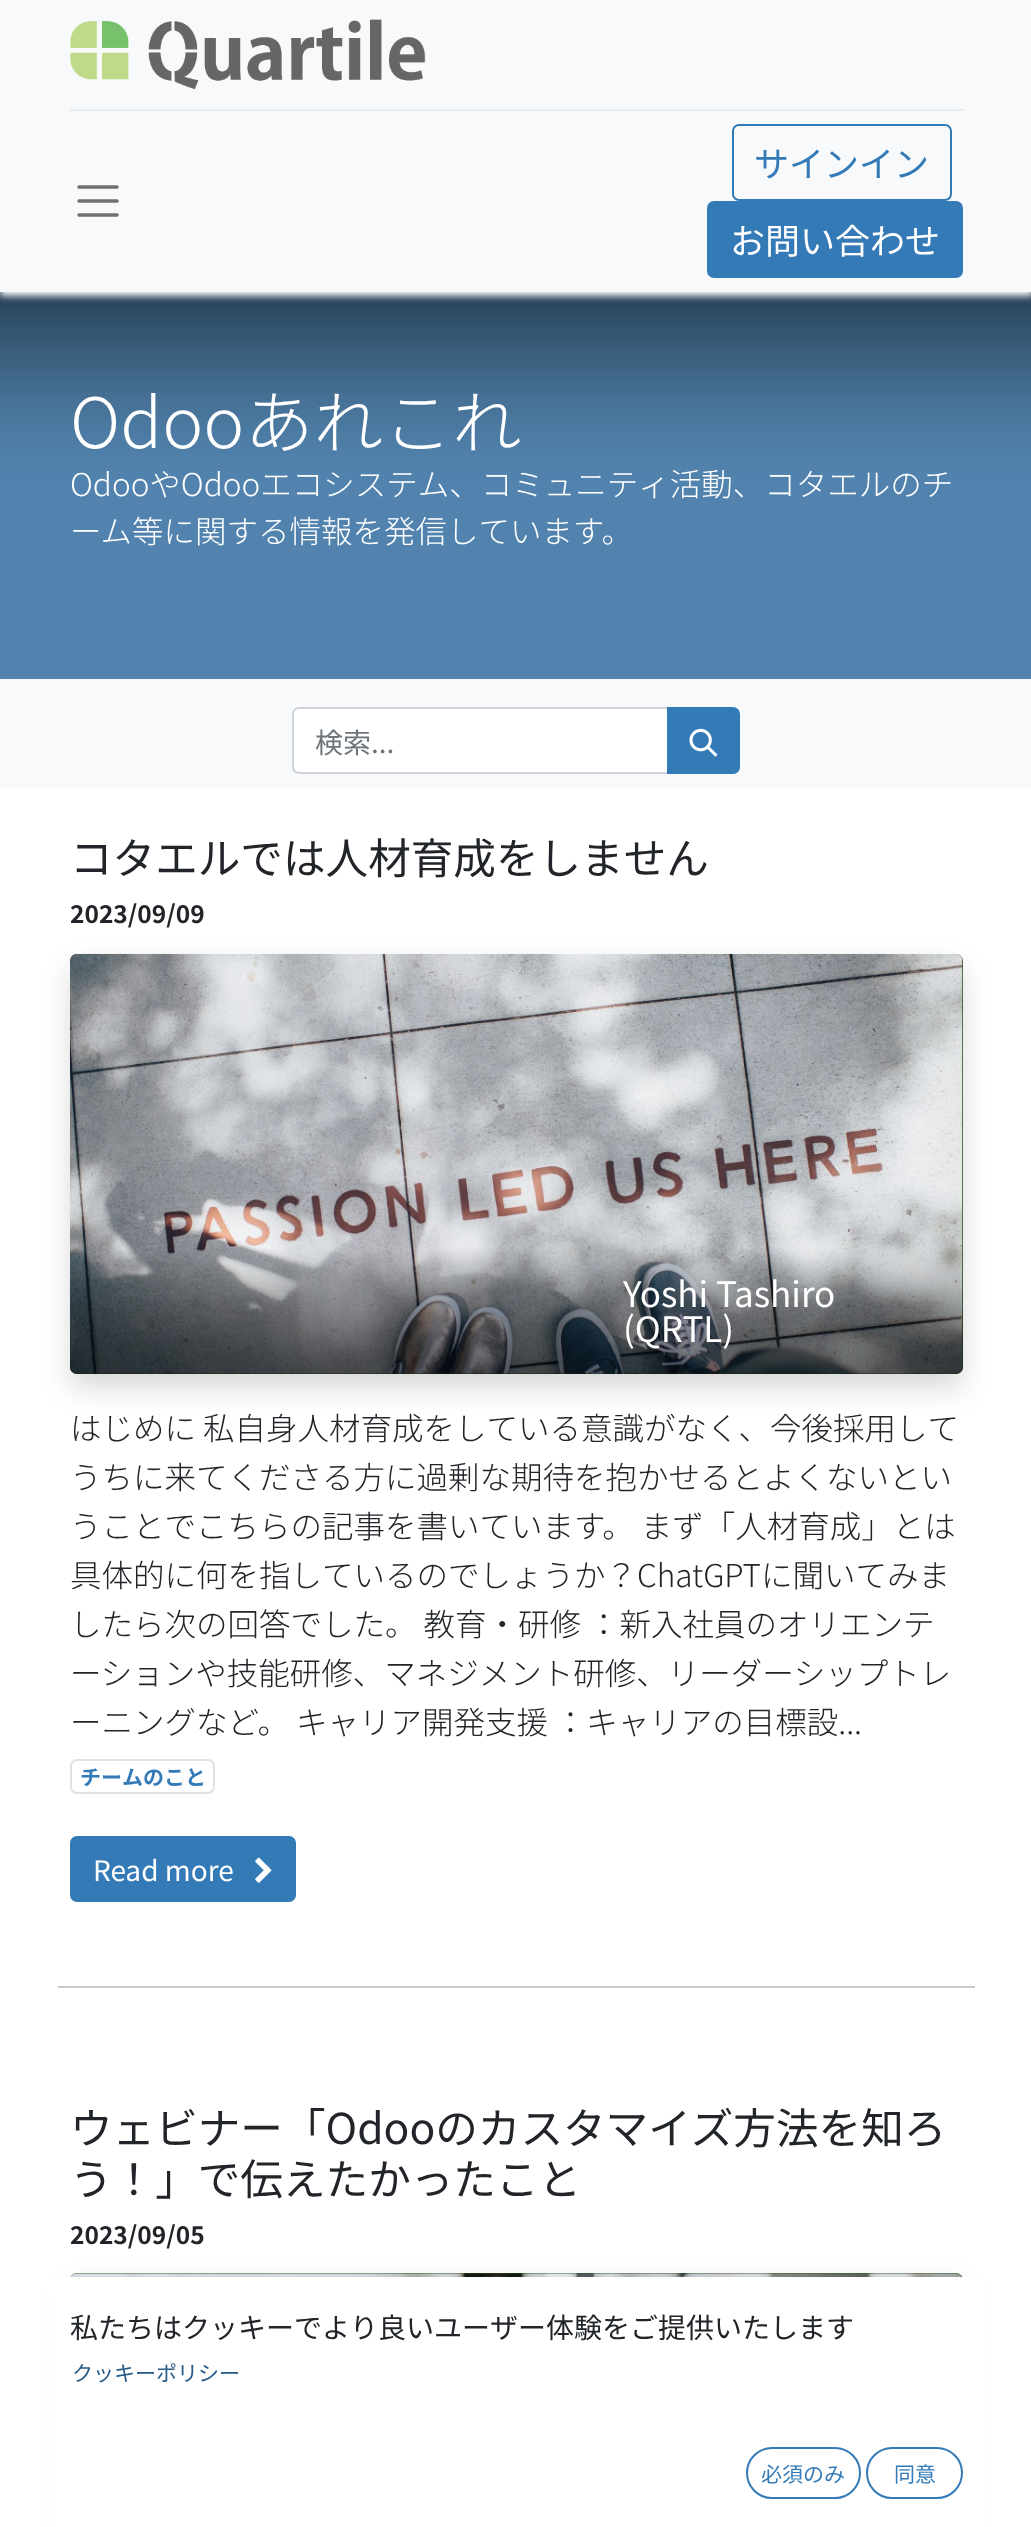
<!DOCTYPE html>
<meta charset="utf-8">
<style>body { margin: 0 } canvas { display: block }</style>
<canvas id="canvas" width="1031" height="2527"></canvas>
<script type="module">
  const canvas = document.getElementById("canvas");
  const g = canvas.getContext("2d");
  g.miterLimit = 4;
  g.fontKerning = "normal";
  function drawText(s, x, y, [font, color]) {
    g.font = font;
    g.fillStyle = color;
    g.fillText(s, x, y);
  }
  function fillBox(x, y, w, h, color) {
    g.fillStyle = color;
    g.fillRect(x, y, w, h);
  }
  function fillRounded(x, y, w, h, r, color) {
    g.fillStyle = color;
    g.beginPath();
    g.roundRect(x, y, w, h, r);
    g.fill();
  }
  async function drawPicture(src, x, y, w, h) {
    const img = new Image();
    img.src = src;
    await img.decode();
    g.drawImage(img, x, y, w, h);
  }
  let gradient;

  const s1 = ["35px Noto Sans JP", "#337AB7"];
  const s2 = ["35px Noto Sans JP", "#FFFFFF"];
  const s3 = ["300 69.25px Noto Sans JP", "#FFFFFF"];
  const s4 = ["300 31.5px Noto Sans JP", "#FFFFFF"];
  const s5 = ["28px Noto Sans JP", "#6C757D"];
  const s6 = ["42.6px Noto Sans JP", "#212529"];
  const s7 = ["bold 24.5px Noto Sans JP", "#212529"];
  const s8 = ["300 31.5px Noto Sans JP", "#212529"];
  const s9 = ["bold 21px Noto Sans JP", "#337AB7"];
  const s10 = ["28px Noto Sans JP", "#FFFFFF"];
  const s11 = ["28px Noto Sans JP", "#212529"];
  const s12 = ["21px Noto Sans JP", "#265A87"];
  const s13 = ["21px Noto Sans JP", "#337AB7"];

  fillBox(0, 0, 1031, 2527, "#FFFFFF");
  gradient = g.createLinearGradient(516, 292, 516, 487);
  gradient.addColorStop(0, "#294257");
  gradient.addColorStop(0.19, "#33536E");
  gradient.addColorStop(0.34, "#3B607F");
  gradient.addColorStop(0.47, "#426A8C");
  gradient.addColorStop(0.56, "#477196");
  gradient.addColorStop(0.65, "#49769D");
  gradient.addColorStop(0.73, "#4C7BA3");
  gradient.addColorStop(0.8, "#4E7EA7");
  gradient.addColorStop(0.86, "#5081AB");
  gradient.addColorStop(0.91, "#5082AC");
  gradient.addColorStop(0.95, "#5182AD");
  gradient.addColorStop(0.98, "#5183AE");
  gradient.addColorStop(1, "#5183AE");
  g.fillStyle = gradient;
  g.fillRect(0, 292, 1031, 195);
  g.fillStyle = "#F8F9FA";
  g.filter = "blur(3.5px)";
  g.beginPath();
  g.rect(0, 4, 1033, 292);
  g.fill();
  g.filter = "none";
  fillBox(0, 0, 1031, 292, "#F8F9FA");
  await drawPicture("pic1.png", 70, 19, 356, 71);
  fillBox(70, 109, 893, 2, "#E9ECEF");
  g.beginPath();
  g.moveTo(79, 187);
  g.lineTo(117, 187);
  g.moveTo(79, 201);
  g.lineTo(117, 201);
  g.moveTo(79, 215);
  g.lineTo(117, 215);
  g.strokeStyle = "#707071";
  g.lineWidth = 3.5;
  g.lineCap = "round";
  g.stroke();
  g.beginPath();
  g.roundRect(733, 125, 218, 75, 6);
  g.strokeStyle = "#337AB7";
  g.lineWidth = 2;
  g.stroke();
  drawText("サインイン", 754, 177, s1);
  g.beginPath();
  g.roundRect(708, 202, 254, 75, 6);
  g.fill();
  g.stroke();
  drawText("お問い合わせ", 730, 254, s2);
  fillBox(0, 487, 1031, 192, "#5183AE");
  drawText("Odooあれこれ", 70, 448, s3);
  drawText("OdooやOdooエコシステム、コミュニティ活動、コタエルのチ", 70, 496, s4);
  drawText("ーム等に関する情報を発信しています。", 70, 543, s4);
  fillBox(0, 679, 1031, 109, "#F8F9FA");
  g.fillStyle = "#FFFFFF";
  g.beginPath();
  g.roundRect(293, 708, 375, 65, [6, 0, 0, 6]);
  g.fill();
  g.strokeStyle = "#CED4DA";
  g.stroke();
  drawText("検索...", 315, 753, s5);
  g.fillStyle = "#337AB7";
  g.beginPath();
  g.roundRect(668, 708, 71, 65, [0, 6, 6, 0]);
  g.fill();
  g.strokeStyle = "#337AB7";
  g.stroke();
  await drawPicture("pic2.png", 689, 728, 29, 29);
  drawText("コタエルでは人材育成をしません", 70, 874, s6);
  drawText("2023/09/09", 70, 923, s7);
  g.fillStyle = "rgba(0, 0, 0, 0.15)";
  g.filter = "blur(14px)";
  g.beginPath();
  g.roundRect(70, 968, 893, 420, 7);
  g.fill();
  g.filter = "none";
  fillRounded(70, 954, 893, 420, 7, "#295218");
  await drawPicture("pic3.png", 70, 953, 893, 421);
  gradient = g.createLinearGradient(516, 1248, 516, 1374);
  gradient.addColorStop(0, "rgba(0, 0, 0, 0)");
  gradient.addColorStop(0.19, "rgba(0, 0, 0, 0.13)");
  gradient.addColorStop(0.34, "rgba(0, 0, 0, 0.23)");
  gradient.addColorStop(0.47, "rgba(0, 0, 0, 0.31)");
  gradient.addColorStop(0.56, "rgba(0, 0, 0, 0.36)");
  gradient.addColorStop(0.65, "rgba(0, 0, 0, 0.4)");
  gradient.addColorStop(0.73, "rgba(0, 0, 0, 0.43)");
  gradient.addColorStop(0.8, "rgba(0, 0, 0, 0.46)");
  gradient.addColorStop(0.86, "rgba(0, 0, 0, 0.48)");
  gradient.addColorStop(0.91, "rgba(0, 0, 0, 0.49)");
  gradient.addColorStop(0.95, "rgba(0, 0, 0, 0.49)");
  gradient.addColorStop(0.98, "rgba(0, 0, 0, 0.5)");
  gradient.addColorStop(1, "rgba(0, 0, 0, 0.5)");
  g.fillStyle = gradient;
  g.beginPath();
  g.roundRect(70, 1248, 893, 126, [0, 0, 7, 7]);
  g.fill();
  drawText("Yoshi Tashiro", 623, 1307, s2);
  drawText("(QRTL)", 623, 1342, s2);
  drawText("はじめに 私自身人材育成をしている意識がなく、今後採用して", 70, 1440, s8);
  drawText("うちに来てくださる方に過剰な期待を抱かせるとよくないとい", 70, 1489, s8);
  drawText("うことでこちらの記事を書いています。 まず「人材育成」とは", 70, 1538, s8);
  drawText("具体的に何を指しているのでしょうか？ChatGPTに聞いてみま", 70, 1587, s8);
  drawText("したら次の回答でした。 教育・研修 ：新入社員のオリエンテ", 70, 1636, s8);
  drawText("ーションや技能研修、マネジメント研修、リーダーシップトレ", 70, 1685, s8);
  drawText("ーニングなど。 キャリア開発支援 ：キャリアの目標設...", 70, 1734, s8);
  g.beginPath();
  g.roundRect(71, 1760, 143, 33, 6);
  g.strokeStyle = "#DEE2E6";
  g.stroke();
  drawText("チームのこと", 80, 1785, s9);
  g.beginPath();
  g.roundRect(71, 1837, 224, 64, 6);
  g.fill();
  g.strokeStyle = "#337AB7";
  g.stroke();
  drawText("Read more", 93, 1881, s10);
  await drawPicture("pic4.png", 255, 1857, 17, 26);
  fillBox(58, 1986, 917, 2, "#C8C9CA");
  drawText("ウェビナー「Odooのカスタマイズ方法を知ろ", 70, 2144, s6);
  drawText("う！」で伝えたかったこと", 70, 2195, s6);
  drawText("2023/09/05", 70, 2244, s7);
  g.fillStyle = "rgba(0, 0, 0, 0.15)";
  g.filter = "blur(14px)";
  g.beginPath();
  g.roundRect(70, 2287, 893, 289, 7);
  g.fill();
  g.filter = "none";
  g.fillStyle = "#295218";
  g.beginPath();
  g.roundRect(70, 2273, 893, 254, [7, 7, 0, 0]);
  g.fill();
  await drawPicture("pic5.png", 71, 2273, 891, 4);
  fillBox(49, 2277, 935, 250, "#FFFFFF");
  drawText("私たちはクッキーでより良いユーザー体験をご提供いたします", 70, 2338, s11);
  drawText("クッキーポリシー", 72, 2381, s12);
  g.beginPath();
  g.roundRect(747, 2448, 113, 50, 25);
  g.stroke();
  drawText("必須のみ", 761, 2482, s13);
  g.beginPath();
  g.roundRect(867, 2448, 95, 50, 25);
  g.stroke();
  drawText("同意", 894, 2482, s13);
</script>
